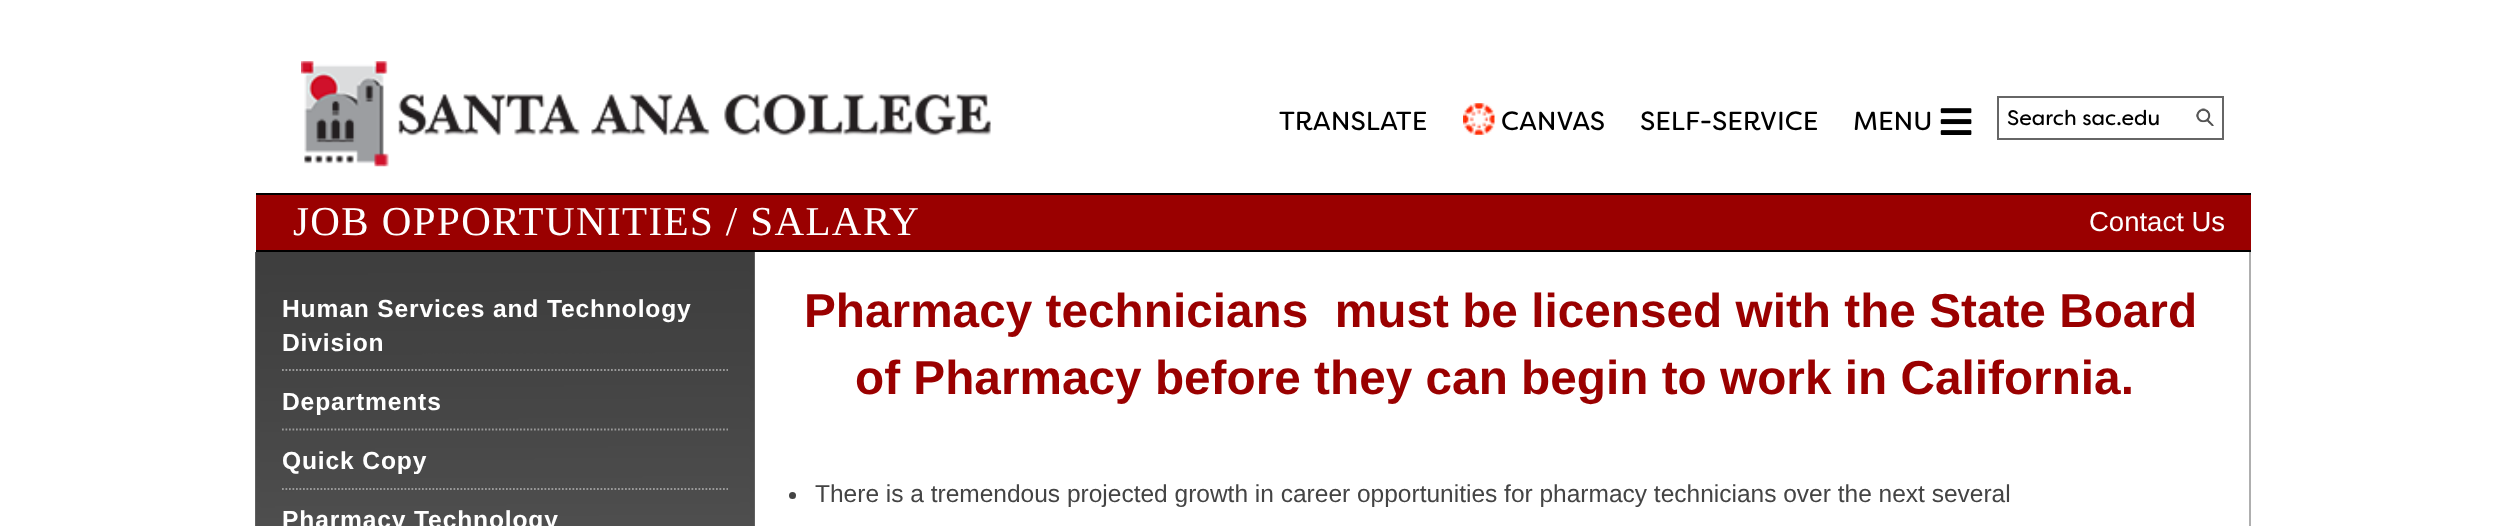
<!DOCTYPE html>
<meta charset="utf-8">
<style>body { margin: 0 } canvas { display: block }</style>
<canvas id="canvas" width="2505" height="526"></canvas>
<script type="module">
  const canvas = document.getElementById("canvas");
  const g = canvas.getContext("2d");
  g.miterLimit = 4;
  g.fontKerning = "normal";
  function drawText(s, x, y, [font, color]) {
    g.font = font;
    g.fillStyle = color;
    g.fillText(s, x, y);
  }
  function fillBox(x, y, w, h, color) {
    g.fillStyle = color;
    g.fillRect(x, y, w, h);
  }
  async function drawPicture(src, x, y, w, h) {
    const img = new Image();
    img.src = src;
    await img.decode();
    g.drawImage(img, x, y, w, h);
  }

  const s1 = ["26.25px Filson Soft", "#000000"];
  const s2 = ["21px Filson Soft", "#000000"];
  const s3 = ["41px Liberation Serif", "#FFFFFF"];
  const s4 = ["27.5px Liberation Sans", "#FFFFFF"];
  const s5 = ["bold 24.6px Liberation Sans", "#FFFFFF"];
  const s6 = ["bold 47.75px Liberation Sans", "#9A0000"];
  const s7 = ["24.5px Liberation Sans", "#444444"];

  fillBox(0, 0, 2505, 526, "#FFFFFF");
  await drawPicture("pic1.png", 301, 61, 690, 106);
  drawText("TRANSLATE", 1279, 130, s1);
  await drawPicture("pic2.png", 1463, 103, 32, 32);
  drawText("CANVAS", 1501, 130, s1);
  drawText("SELF-SERVICE", 1640, 130, s1);
  drawText("MENU", 1853, 130, s1);
  await drawPicture("pic3.png", 1940, 108, 32, 27);
  g.strokeStyle = "#666666";
  g.lineWidth = 2;
  g.strokeRect(1998, 97, 225, 42);
  drawText("Search sac.edu", 2007, 125, s2);
  await drawPicture("pic4.png", 2196, 108, 18, 18);
  fillBox(256, 195, 1995, 55, "#9A0000");
  fillBox(256, 193, 1995, 2, "#000000");
  fillBox(256, 250, 1995, 2, "#000000");
  g.letterSpacing = "1.4px";
  drawText("JOB OPPORTUNITIES / SALARY", 293, 235, s3);
  g.letterSpacing = "0px";
  drawText("Contact Us", 2089, 231, s4);
  fillBox(255, 252, 500, 274, "#666666");
  fillBox(2249, 252, 2, 274, "#AFAFAF");
  await drawPicture("pic5.png", 255, 252, 500, 274);
  g.beginPath();
  g.moveTo(282, 370);
  g.lineTo(728, 370);
  g.strokeStyle = "#999999";
  g.lineWidth = 1.8;
  g.setLineDash([1.75, 1.75]);
  g.stroke();
  g.letterSpacing = "0.85px";
  drawText("Human Services and Technology", 282, 317, s5);
  drawText("Division", 282, 351, s5);
  g.beginPath();
  g.moveTo(282, 429.5);
  g.lineTo(728, 429.5);
  g.stroke();
  drawText("Departments", 282, 410, s5);
  g.beginPath();
  g.moveTo(282, 489);
  g.lineTo(728, 489);
  g.stroke();
  drawText("Quick Copy", 282, 469, s5);
  drawText("Pharmacy Technology", 282, 528, s5);
  g.letterSpacing = "0px";
  drawText("Pharmacy technicians  must be licensed with the State Board", 804, 327, s6);
  drawText("of Pharmacy before they can begin to work in California.", 855, 394, s6);
  g.fillStyle = "#444444";
  g.beginPath();
  g.arc(792.5, 495.5, 3.5, 0, Math.PI * 2);
  g.fill();
  drawText("There is a tremendous projected growth in career opportunities for pharmacy technicians over the next several", 815, 502, s7);
</script>
